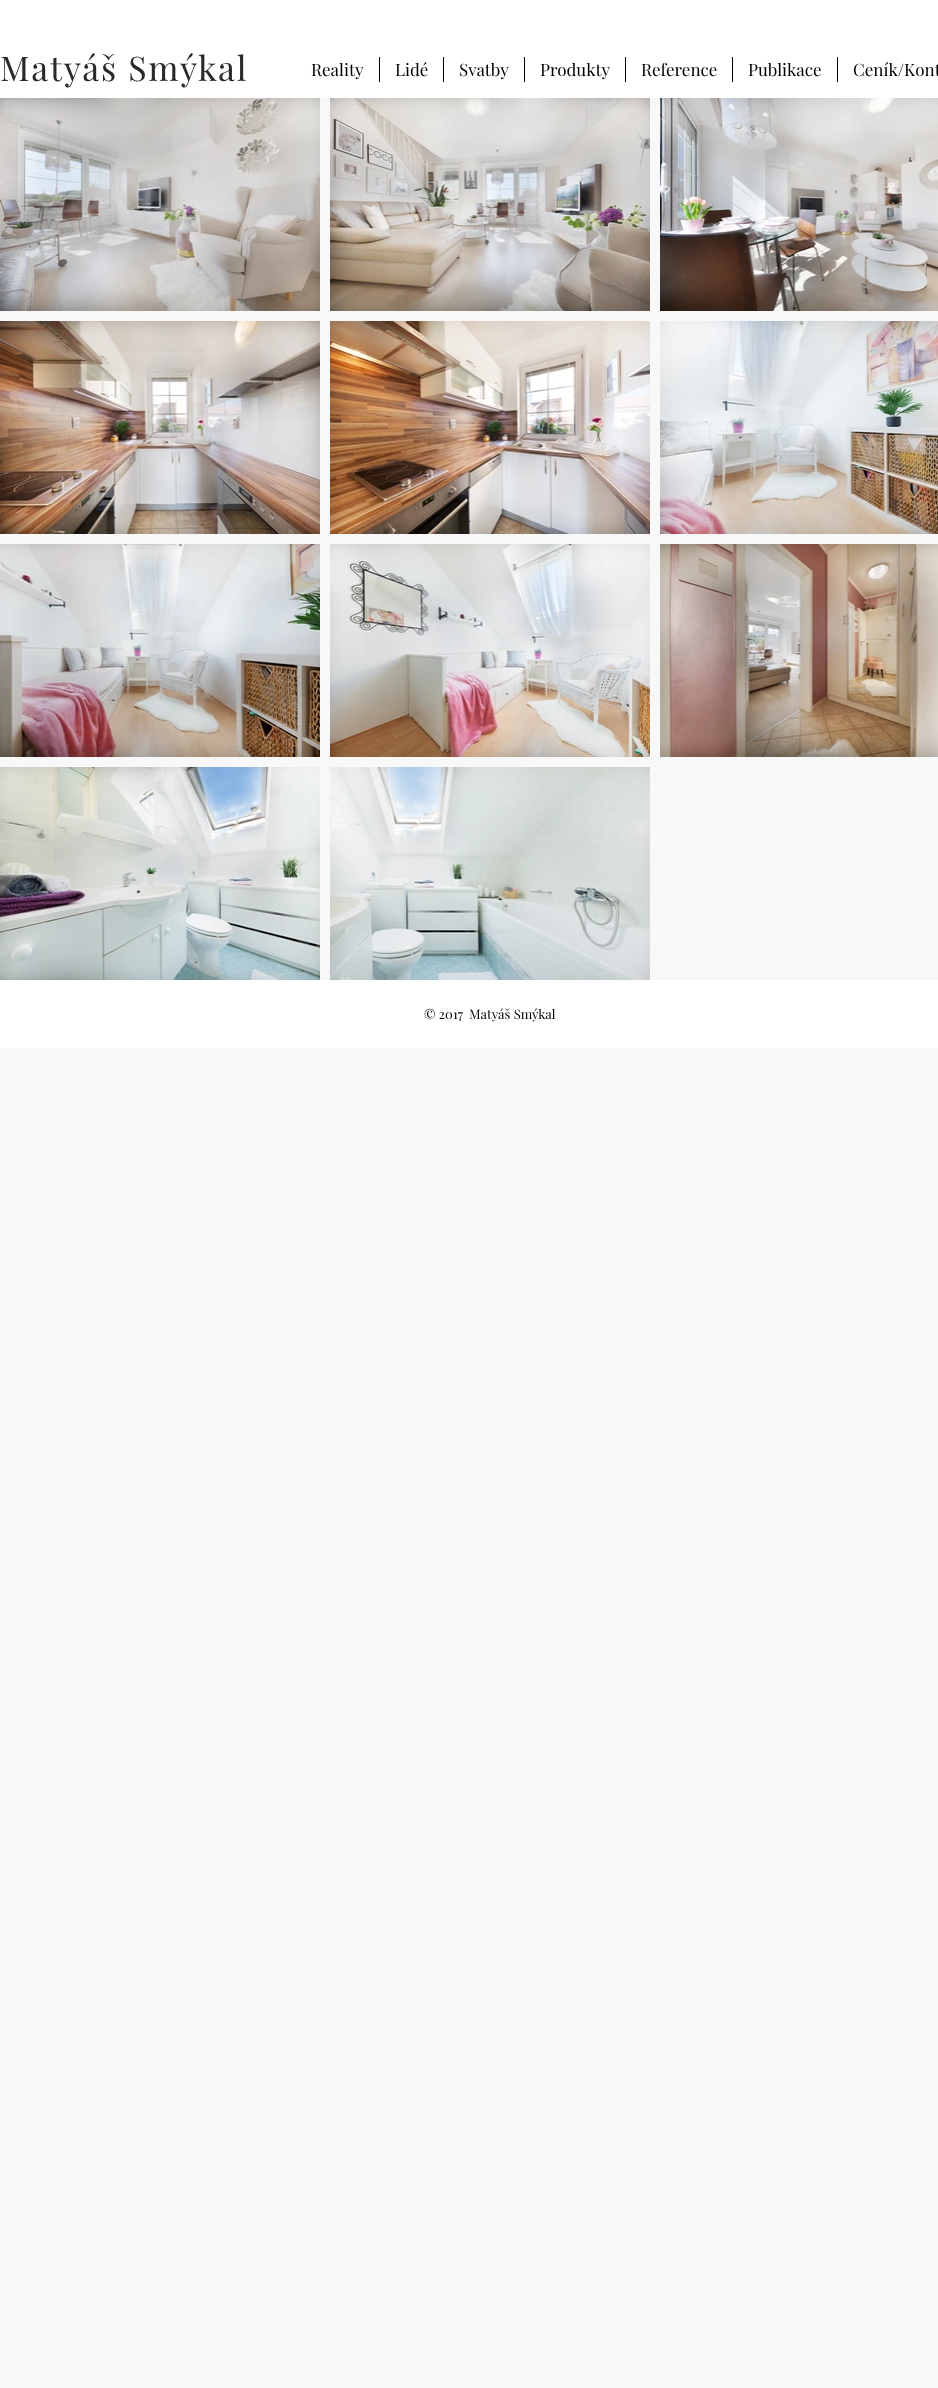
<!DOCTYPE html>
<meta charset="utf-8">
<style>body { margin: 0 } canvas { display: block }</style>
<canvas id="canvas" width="938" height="2388"></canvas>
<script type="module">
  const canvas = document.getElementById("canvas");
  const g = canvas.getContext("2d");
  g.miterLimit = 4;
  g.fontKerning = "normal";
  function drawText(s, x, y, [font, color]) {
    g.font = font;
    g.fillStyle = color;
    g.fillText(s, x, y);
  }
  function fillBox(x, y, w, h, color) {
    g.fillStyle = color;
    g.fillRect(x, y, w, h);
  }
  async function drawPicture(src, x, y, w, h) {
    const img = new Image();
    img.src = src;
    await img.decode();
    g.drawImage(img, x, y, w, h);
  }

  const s1 = ["34px Playfair Display", "#292929"];
  const s2 = ["17px Playfair Display", "#000000"];
  const s3 = ["13px Playfair Display", "#000000"];

  fillBox(0, 0, 938, 2388, "#F8F8F8");
  fillBox(0, 0, 938, 98, "#FFFFFF");
  g.letterSpacing = "1.75px";
  drawText("Matyáš Smýkal", 0, 81, s1);
  g.letterSpacing = "0px";
  drawText("Reality", 311, 76, s2);
  fillBox(379, 57, 1, 25, "#000000");
  drawText("Lidé", 395, 76, s2);
  fillBox(443, 57, 1, 25, "#000000");
  drawText("Svatby", 459, 76, s2);
  fillBox(524, 57, 1, 25, "#000000");
  drawText("Produkty", 540, 76, s2);
  fillBox(625, 57, 1, 25, "#000000");
  drawText("Reference", 641, 76, s2);
  fillBox(732, 57, 1, 25, "#000000");
  drawText("Publikace", 748, 76, s2);
  fillBox(837, 57, 1, 25, "#000000");
  drawText("Ceník/Kont", 853, 76, s2);
  await drawPicture("pic1.png", 0, 98, 320, 213);
  await drawPicture("pic2.png", 330, 98, 320, 213);
  await drawPicture("pic3.png", 660, 98, 278, 213);
  await drawPicture("pic4.png", 0, 321, 320, 213);
  await drawPicture("pic5.png", 330, 321, 320, 213);
  await drawPicture("pic6.png", 660, 321, 278, 213);
  await drawPicture("pic7.png", 0, 544, 320, 213);
  await drawPicture("pic8.png", 330, 544, 320, 213);
  await drawPicture("pic9.png", 660, 544, 278, 213);
  await drawPicture("pic10.png", 0, 767, 320, 213);
  await drawPicture("pic11.png", 330, 767, 320, 213);
  fillBox(0, 980, 938, 68, "#FFFFFF");
  drawText("© 2017  Matyáš Smýkal", 424, 1019, s3);
</script>
